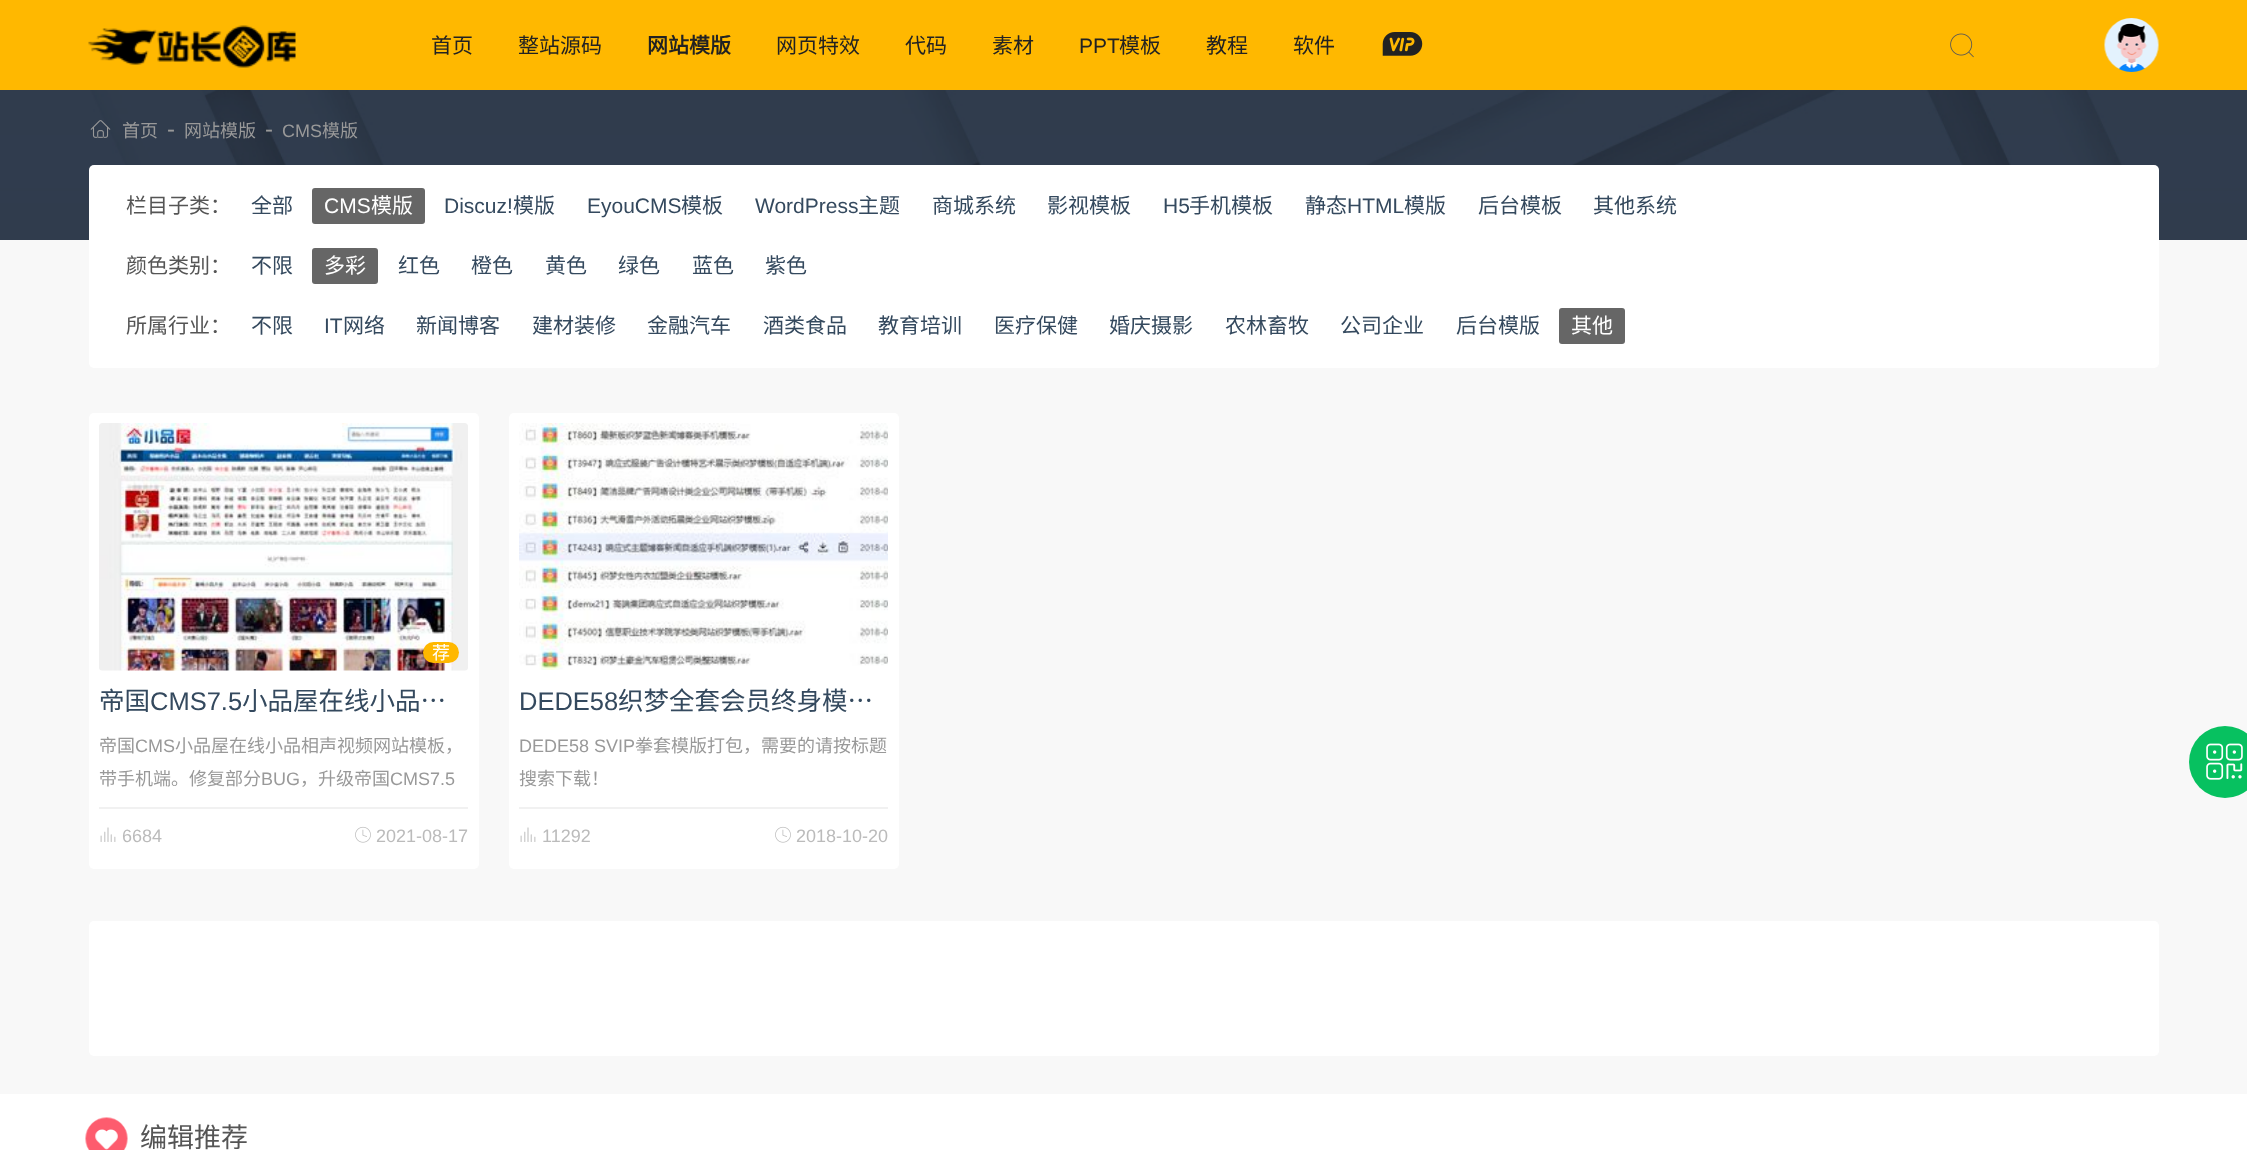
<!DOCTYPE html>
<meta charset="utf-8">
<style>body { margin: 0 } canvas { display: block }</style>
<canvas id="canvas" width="2247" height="1150"></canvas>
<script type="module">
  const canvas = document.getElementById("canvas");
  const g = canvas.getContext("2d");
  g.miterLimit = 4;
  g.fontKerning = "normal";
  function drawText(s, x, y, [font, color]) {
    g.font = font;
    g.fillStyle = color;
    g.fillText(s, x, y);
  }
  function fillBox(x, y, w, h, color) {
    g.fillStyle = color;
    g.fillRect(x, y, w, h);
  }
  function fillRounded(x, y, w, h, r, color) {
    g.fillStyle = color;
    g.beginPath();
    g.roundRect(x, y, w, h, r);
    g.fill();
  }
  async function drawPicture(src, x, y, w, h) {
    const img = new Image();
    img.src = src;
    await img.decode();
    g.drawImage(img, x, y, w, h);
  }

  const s1 = ["21px Noto Sans CJK SC", "#222222"];
  const s2 = ["bold 21px Noto Sans CJK SC", "#222222"];
  const s3 = ["21px Liberation Sans", "#222222"];
  const s4 = ["18px Noto Sans CJK SC", "#999999"];
  const s5 = ["24px Liberation Sans", "#999999"];
  const s6 = ["18px Liberation Sans", "#999999"];
  const s7 = ["21px Noto Sans CJK SC", "#555555"];
  const s8 = ["21px Noto Sans CJK SC", "#34495E"];
  const s9 = ["21px Liberation Sans", "#FFFFFF"];
  const s10 = ["21px Noto Sans CJK SC", "#FFFFFF"];
  const s11 = ["21px Liberation Sans", "#34495E"];
  const s12 = ["18px Noto Sans CJK SC", "#FFFFFF"];
  const s13 = ["25.5px Noto Sans CJK SC", "#34495E"];
  const s14 = ["25.5px Liberation Sans", "#34495E"];
  const s15 = ["18px Liberation Sans", "#BBBBBB"];
  const s16 = ["27px Noto Sans CJK SC", "#555555"];

  fillBox(0, 0, 2247, 1150, "#F8F8F8");
  fillBox(0, 0, 2247, 90, "#FFB800");
  await drawPicture("pic1.png", 88, 25, 208, 43);
  drawText("首页", 431, 53, s1);
  drawText("整站源码", 518, 53, s1);
  drawText("网站模版", 647, 53, s2);
  drawText("网页特效", 776, 53, s1);
  drawText("代码", 905, 53, s1);
  drawText("素材", 992, 53, s1);
  drawText("PPT", 1079, 53, s3);
  drawText("模板", 1119, 53, s1);
  drawText("教程", 1206, 53, s1);
  drawText("软件", 1293, 53, s1);
  await drawPicture("pic2.png", 1382, 32, 41, 24);
  await drawPicture("pic3.png", 1950, 33, 24, 25);
  await drawPicture("pic4.png", 2104, 18, 55, 54);
  await drawPicture("pic5.png", 0, 90, 2247, 150);
  await drawPicture("pic6.png", 90, 120, 21, 18);
  drawText("首页", 122, 137, s4);
  drawText("-", 167, 137, s5);
  drawText("网站模版", 184, 137, s4);
  drawText("-", 265, 137, s5);
  drawText("CMS", 282, 137, s6);
  drawText("模版", 322, 137, s4);
  fillRounded(89, 165, 2070, 203, 5, "#FFFFFF");
  drawText("栏目子类：", 126, 213, s7);
  drawText("全部", 251, 213, s8);
  fillRounded(312, 188, 113, 36, 3, "#666666");
  drawText("CMS", 324, 213, s9);
  drawText("模版", 371, 213, s10);
  drawText("Discuz!", 444, 213, s11);
  drawText("模版", 513, 213, s8);
  drawText("EyouCMS", 587, 213, s11);
  drawText("模板", 681, 213, s8);
  drawText("WordPress", 755, 213, s11);
  drawText("主题", 858, 213, s8);
  drawText("商城系统", 932, 213, s8);
  drawText("影视模板", 1047, 213, s8);
  drawText("H5", 1163, 213, s11);
  drawText("手机模板", 1189, 213, s8);
  drawText("静态", 1305, 213, s8);
  drawText("HTML", 1347, 213, s11);
  drawText("模版", 1404, 213, s8);
  drawText("后台模板", 1478, 213, s8);
  drawText("其他系统", 1593, 213, s8);
  drawText("颜色类别：", 126, 273, s7);
  drawText("不限", 251, 273, s8);
  fillRounded(312, 248, 66, 36, 3, "#666666");
  drawText("多彩", 324, 273, s10);
  drawText("红色", 398, 273, s8);
  drawText("橙色", 471, 273, s8);
  drawText("黄色", 545, 273, s8);
  drawText("绿色", 618, 273, s8);
  drawText("蓝色", 692, 273, s8);
  drawText("紫色", 765, 273, s8);
  drawText("所属行业：", 126, 333, s7);
  drawText("不限", 251, 333, s8);
  drawText("IT", 324, 333, s11);
  drawText("网络", 343, 333, s8);
  drawText("新闻博客", 416, 333, s8);
  drawText("建材装修", 532, 333, s8);
  drawText("金融汽车", 647, 333, s8);
  drawText("酒类食品", 763, 333, s8);
  drawText("教育培训", 878, 333, s8);
  drawText("医疗保健", 994, 333, s8);
  drawText("婚庆摄影", 1109, 333, s8);
  drawText("农林畜牧", 1225, 333, s8);
  drawText("公司企业", 1340, 333, s8);
  drawText("后台模版", 1456, 333, s8);
  fillRounded(1559, 308, 66, 36, 3, "#666666");
  drawText("其他", 1571, 333, s10);
  fillRounded(89, 413, 390, 456, 5, "#FFFFFF");
  await drawPicture("pic7.png", 99, 423, 369, 248);
  fillRounded(423, 642, 36, 21, 10.5, "#FFB800");
  drawText("荐", 432, 659, s12);
  drawText("帝国", 99, 710, s13);
  drawText("CMS7.5", 150, 710, s14);
  drawText("小品屋在线小品…", 242, 710, s13);
  drawText("帝国", 99, 752, s4);
  drawText("CMS", 135, 752, s6);
  drawText("小品屋在线小品相声视频网站模板，", 175, 752, s4);
  drawText("带手机端。修复部分", 99, 785, s4);
  drawText("BUG", 261, 785, s6);
  drawText("，升级帝国", 300, 785, s4);
  drawText("CMS7.5", 390, 785, s6);
  fillBox(99, 807, 369, 2, "#F1F1F1");
  await drawPicture("pic8.png", 100, 827, 16, 15);
  drawText("6684", 122, 842, s15);
  await drawPicture("pic9.png", 355, 826, 16, 17);
  drawText("2021-08-17", 376, 842, s15);
  fillRounded(509, 413, 390, 456, 5, "#FFFFFF");
  await drawPicture("pic10.png", 519, 423, 369, 247);
  drawText("DEDE58", 519, 710, s14);
  drawText("织梦全套会员终身模…", 618, 710, s13);
  drawText("DEDE58 SVIP", 519, 752, s6);
  drawText("拳套模版打包，需要的请按标题", 635, 752, s4);
  drawText("搜索下载！", 519, 785, s4);
  fillBox(519, 807, 369, 2, "#F1F1F1");
  await drawPicture("pic8.png", 520, 827, 16, 15);
  drawText("11292", 542, 842, s15);
  await drawPicture("pic9.png", 775, 826, 16, 17);
  drawText("2018-10-20", 796, 842, s15);
  fillRounded(89, 921, 2070, 135, 5, "#FFFFFF");
  g.fillStyle = "#07C160";
  g.beginPath();
  g.arc(2225, 762, 36, 0, Math.PI * 2);
  g.fill();
  await drawPicture("pic11.png", 2206, 743, 37, 37);
  fillBox(0, 1094, 2247, 56, "#FFFFFF");
  await drawPicture("pic12.png", 85, 1117, 43, 33);
  drawText("编辑推荐", 140, 1147, s16);
</script>
